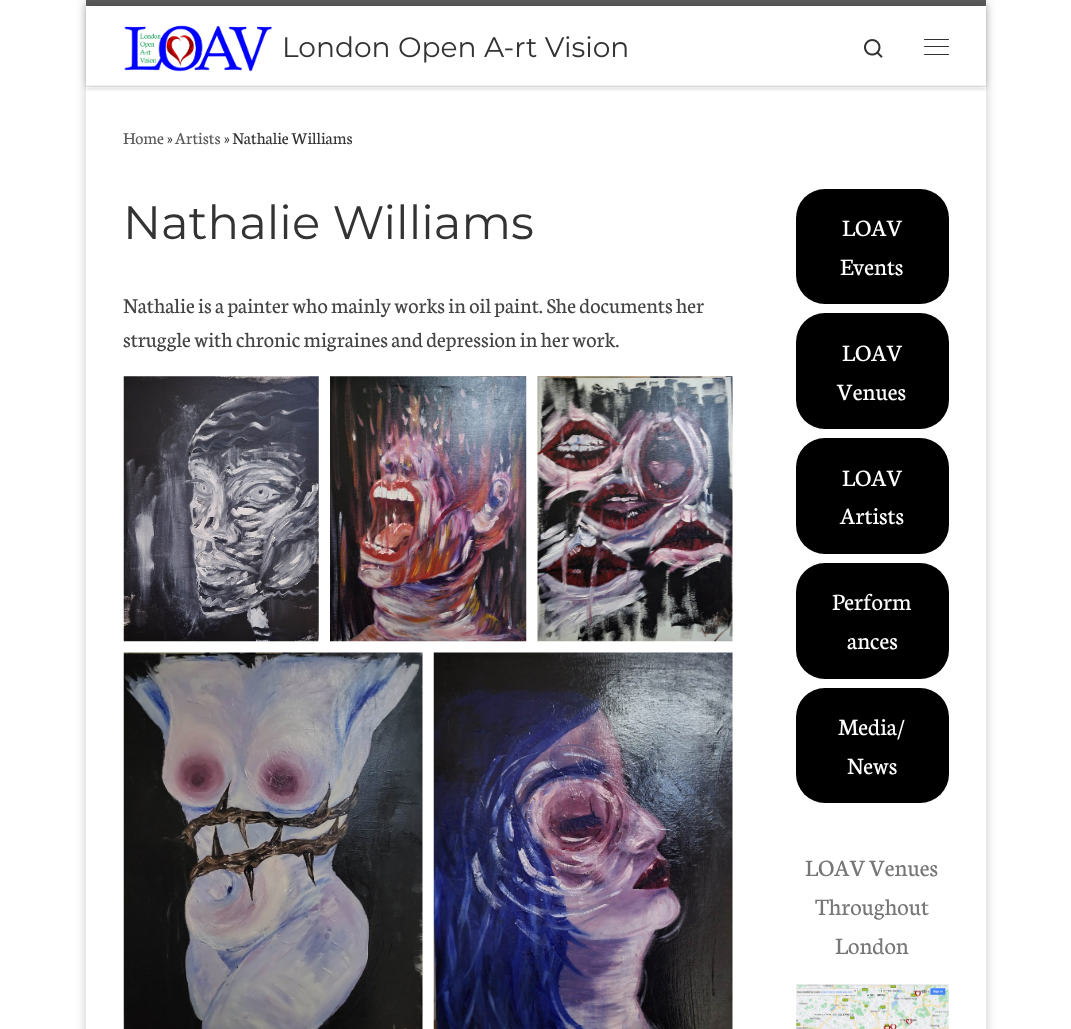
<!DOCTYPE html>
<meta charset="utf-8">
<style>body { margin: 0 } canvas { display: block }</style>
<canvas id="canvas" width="1071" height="1029"></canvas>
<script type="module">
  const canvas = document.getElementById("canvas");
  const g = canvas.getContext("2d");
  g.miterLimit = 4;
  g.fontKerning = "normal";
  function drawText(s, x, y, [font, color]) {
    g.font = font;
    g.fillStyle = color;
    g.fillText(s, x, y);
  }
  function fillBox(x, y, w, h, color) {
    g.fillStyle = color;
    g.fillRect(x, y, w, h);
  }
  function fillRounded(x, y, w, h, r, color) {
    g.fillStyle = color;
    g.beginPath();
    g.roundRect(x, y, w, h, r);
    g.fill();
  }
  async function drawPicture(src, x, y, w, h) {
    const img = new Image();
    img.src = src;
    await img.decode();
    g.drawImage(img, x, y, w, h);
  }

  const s1 = ["100 28.1px Montserrat", "#333333"];
  const s2 = ["17.75px Neuton", "#5A5A5A"];
  const s3 = ["17.75px Neuton", "#333333"];
  const s4 = ["100 46.75px Montserrat", "#333333"];
  const s5 = ["22.5px Neuton", "#444444"];
  const s6 = ["25px Neuton", "#FFFFFF"];
  const s7 = ["25px Neuton", "#777777"];

  fillBox(0, 0, 1071, 1029, "#FFFFFF");
  g.fillStyle = "rgba(0, 0, 0, 0.2)";
  g.filter = "blur(6px)";
  g.beginPath();
  g.rect(86, 0, 900, 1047);
  g.fill();
  g.filter = "none";
  fillBox(86, 88, 900, 941, "#FFFFFF");
  g.fillStyle = "rgba(102, 102, 102, 0.08)";
  g.filter = "blur(1px)";
  g.beginPath();
  g.rect(86, 3, 900, 87);
  g.fill();
  g.filter = "none";
  fillBox(86, 87, 900, 1, "#FFFFFF");
  fillBox(86, 0, 900, 6, "#5A5A5A");
  fillBox(86, 86, 900, 1, "#ECECEC");
  g.fillStyle = "rgba(255, 255, 255, 0.15)";
  g.beginPath();
  g.moveTo(86, 8);
  g.lineTo(86, 88);
  g.lineTo(986, 88);
  g.lineTo(986, 86);
  g.lineTo(86, 86);
  g.closePath();
  g.fill();
  g.fillStyle = "rgba(0, 0, 0, 0.2)";
  g.filter = "blur(3px)";
  g.beginPath();
  g.rect(86, 6, 900, 80);
  g.fill();
  g.filter = "none";
  fillBox(86, 6, 900, 79, "#FFFFFF");
  await drawPicture("pic1.png", 124, 25, 148, 47);
  drawText("London Open A-rt Vision", 282, 57, s1);
  await drawPicture("pic2.png", 864, 39, 19, 19);
  fillRounded(924, 39, 25, 1, 0.5, "#313131");
  fillRounded(924, 46, 25, 1, 0.5, "#313131");
  fillRounded(924, 54, 25, 1, 0.5, "#313131");
  fillBox(86, 85, 900, 1, "#F0F0F0");
  drawText("Home", 123, 144, s2);
  drawText("»", 167, 144, s3);
  drawText("Artists", 175, 144, s2);
  drawText("» Nathalie Williams", 224, 144, s3);
  drawText("Nathalie Williams", 123, 239, s4);
  drawText("Nathalie is a painter who mainly works in oil paint. She documents her", 123, 313, s5);
  drawText("struggle with chronic migraines and depression in her work.", 123, 347, s5);
  await drawPicture("pic3.png", 123, 376, 196, 266);
  await drawPicture("pic4.png", 330, 376, 197, 266);
  await drawPicture("pic5.png", 537, 376, 196, 266);
  await drawPicture("pic6.png", 123, 652, 300, 377);
  await drawPicture("pic7.png", 433, 652, 300, 377);
  fillRounded(796, 189, 153, 115, 29, "#000000");
  drawText("LOAV", 842, 236, s6);
  drawText("Events", 840, 275, s6);
  fillRounded(796, 313, 153, 116, 29, "#000000");
  drawText("LOAV", 842, 361, s6);
  drawText("Venues", 837, 400, s6);
  fillRounded(796, 438, 153, 116, 29, "#000000");
  drawText("LOAV", 842, 486, s6);
  drawText("Artists", 840, 524, s6);
  fillRounded(796, 563, 153, 116, 29, "#000000");
  drawText("Perform", 832, 610, s6);
  drawText("ances", 847, 649, s6);
  fillRounded(796, 688, 153, 115, 29, "#000000");
  drawText("Media/", 838, 735, s6);
  drawText("News", 847, 774, s6);
  drawText("LOAV Venues", 805, 876, s7);
  drawText("Throughout", 815, 915, s7);
  drawText("London", 835, 954, s7);
  await drawPicture("pic8.png", 796, 984, 153, 45);
</script>
